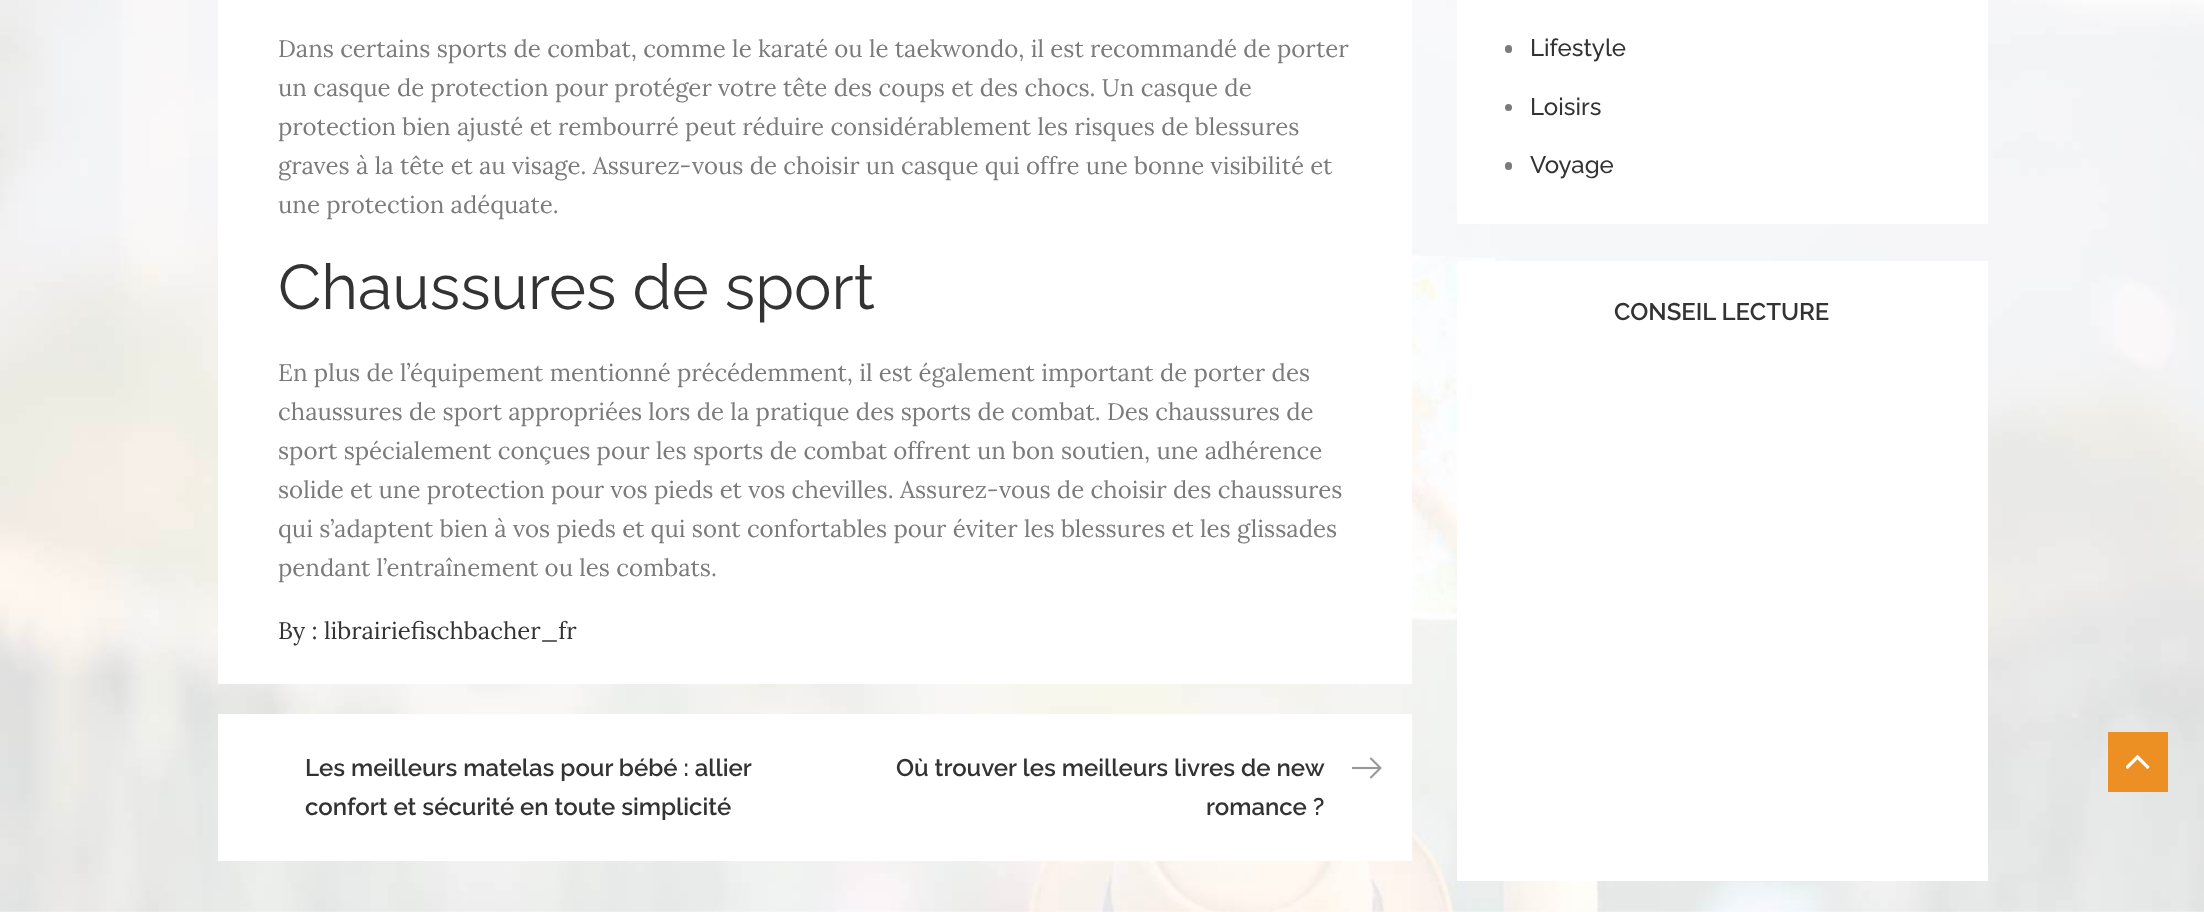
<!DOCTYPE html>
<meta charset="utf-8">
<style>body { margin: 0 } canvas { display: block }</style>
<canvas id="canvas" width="2204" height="912"></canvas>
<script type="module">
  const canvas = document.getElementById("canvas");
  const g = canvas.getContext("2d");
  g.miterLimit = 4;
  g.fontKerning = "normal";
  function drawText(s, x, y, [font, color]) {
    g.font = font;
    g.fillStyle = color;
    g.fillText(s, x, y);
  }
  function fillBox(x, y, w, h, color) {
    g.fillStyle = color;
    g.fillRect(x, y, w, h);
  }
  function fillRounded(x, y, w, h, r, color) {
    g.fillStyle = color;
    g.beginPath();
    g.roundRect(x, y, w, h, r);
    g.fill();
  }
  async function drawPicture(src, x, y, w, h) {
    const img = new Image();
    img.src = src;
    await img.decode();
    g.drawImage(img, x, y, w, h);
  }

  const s1 = ["24px Lora", "#7B7B7B"];
  const s2 = ["63px Raleway", "#333333"];
  const s3 = ["24px Lora", "#333333"];
  const s4 = ["600 24px Raleway", "#333333"];
  const s5 = ["500 24px Raleway", "#333333"];

  fillBox(0, 0, 2204, 912, "#FFFFFF");
  await drawPicture("pic1.png", 0, 0, 2204, 912);
  fillBox(218, 0, 1194, 684, "#FFFFFF");
  drawText("Dans certains sports de combat, comme le karaté ou le taekwondo, il est recommandé de porter", 278, 57, s1);
  drawText("un casque de protection pour protéger votre tête des coups et des chocs. Un casque de", 278, 96, s1);
  drawText("protection bien ajusté et rembourré peut réduire considérablement les risques de blessures", 278, 135, s1);
  drawText("graves à la tête et au visage. Assurez-vous de choisir un casque qui offre une bonne visibilité et", 278, 174, s1);
  drawText("une protection adéquate.", 278, 213, s1);
  drawText("Chaussures de sport", 278, 309, s2);
  drawText("En plus de l’équipement mentionné précédemment, il est également important de porter des", 278, 381, s1);
  drawText("chaussures de sport appropriées lors de la pratique des sports de combat. Des chaussures de", 278, 420, s1);
  drawText("sport spécialement conçues pour les sports de combat offrent un bon soutien, une adhérence", 278, 459, s1);
  drawText("solide et une protection pour vos pieds et vos chevilles. Assurez-vous de choisir des chaussures", 278, 498, s1);
  drawText("qui s’adaptent bien à vos pieds et qui sont confortables pour éviter les blessures et les glissades", 278, 537, s1);
  drawText("pendant l’entraînement ou les combats.", 278, 576, s1);
  drawText("By : librairiefischbacher_fr", 278, 639, s3);
  fillBox(218, 714, 1194, 147, "#FFFFFF");
  drawText("Les meilleurs matelas pour bébé : allier", 305, 776, s4);
  drawText("confort et sécurité en toute simplicité", 305, 815, s4);
  drawText("Où trouver les meilleurs livres de new", 896, 776, s4);
  drawText("romance ?", 1206, 815, s4);
  await drawPicture("pic2.png", 1352, 757, 30, 22);
  fillBox(1457, 0, 531, 224, "#FFFFFF");
  fillRounded(1505, 45, 7, 8, 3.5, "#7B7B7B");
  drawText("Lifestyle", 1530, 56, s5);
  g.fillStyle = "#7B7B7B";
  g.beginPath();
  g.arc(1508.5, 107.5, 3.5, 0, Math.PI * 2);
  g.fill();
  drawText("Loisirs", 1530, 115, s5);
  fillRounded(1505, 162, 7, 8, 3.5, "#7B7B7B");
  drawText("Voyage", 1530, 173, s5);
  fillBox(1457, 261, 531, 620, "#FFFFFF");
  drawText("CONSEIL LECTURE", 1614, 320, s4);
  fillBox(2108, 732, 60, 60, "#EC9023");
  await drawPicture("pic3.png", 2126, 755, 24, 14);
</script>
